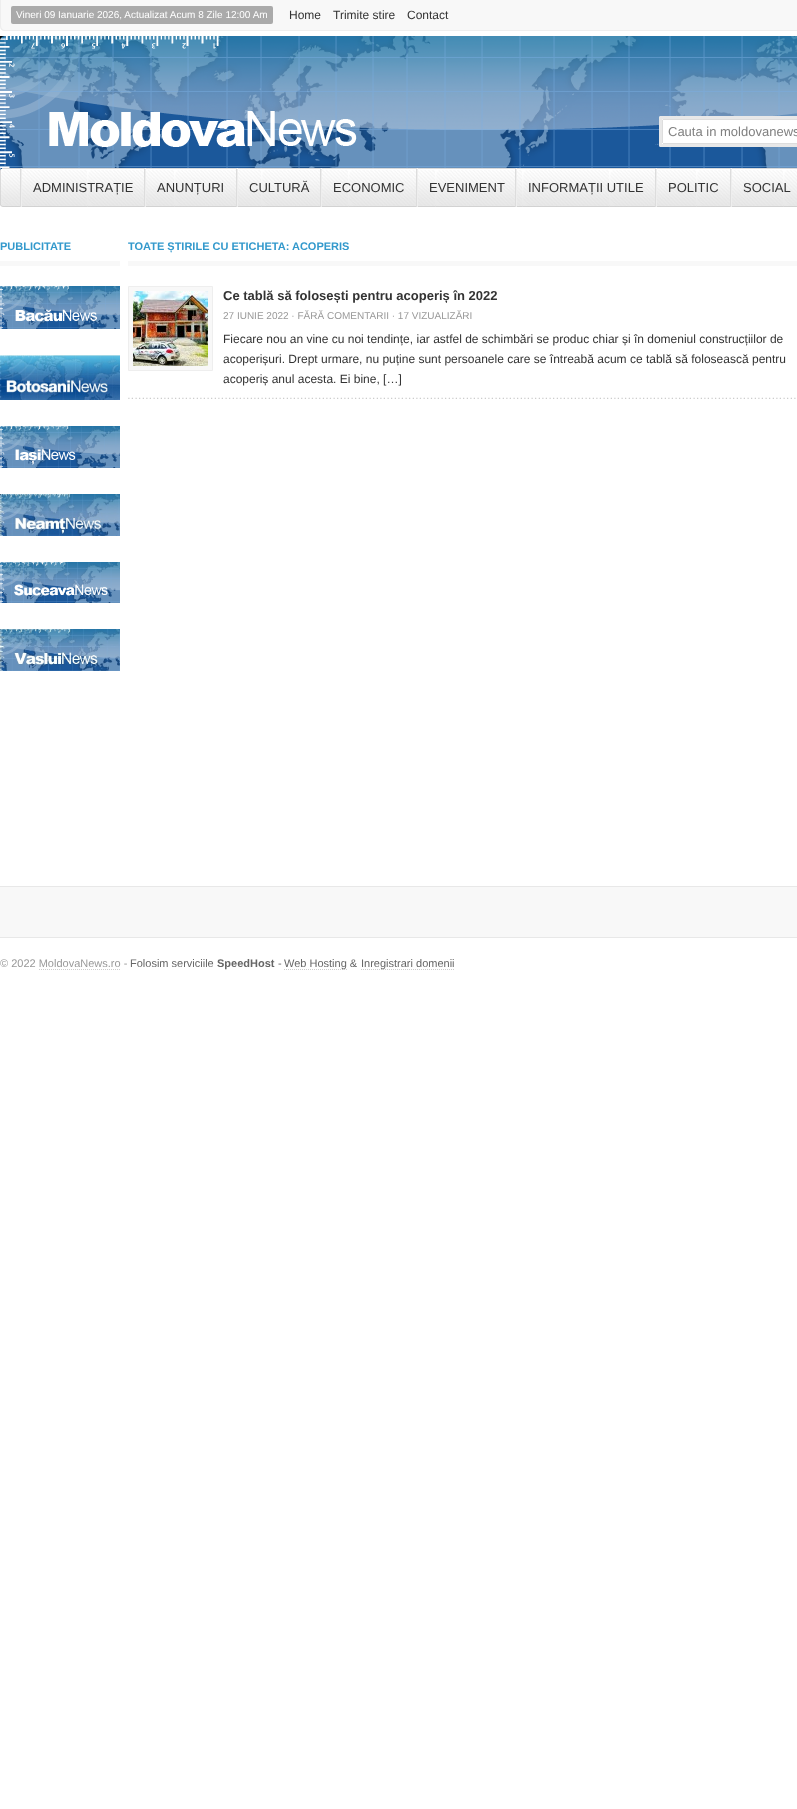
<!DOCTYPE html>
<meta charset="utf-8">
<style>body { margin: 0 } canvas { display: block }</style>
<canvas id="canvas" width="797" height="1809"></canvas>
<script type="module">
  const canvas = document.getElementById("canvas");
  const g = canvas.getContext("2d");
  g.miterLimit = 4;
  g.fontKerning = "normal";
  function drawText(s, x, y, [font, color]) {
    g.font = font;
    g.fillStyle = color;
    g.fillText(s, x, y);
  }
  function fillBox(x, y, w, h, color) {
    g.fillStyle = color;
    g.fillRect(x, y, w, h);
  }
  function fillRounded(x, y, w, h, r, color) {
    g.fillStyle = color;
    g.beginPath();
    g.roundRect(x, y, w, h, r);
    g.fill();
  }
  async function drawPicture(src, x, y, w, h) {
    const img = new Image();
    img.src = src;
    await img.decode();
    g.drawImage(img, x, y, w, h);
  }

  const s1 = ["10px Liberation Sans", "#FFFFFF"];
  const s2 = ["12px Liberation Sans", "#333333"];
  const s3 = ["13px Liberation Sans", "#808080"];
  const s4 = ["13px Liberation Sans", "#333333"];
  const s5 = ["bold 11px Liberation Sans", "#3399CC"];
  const s6 = ["bold 13px Liberation Sans", "#333333"];
  const s7 = ["10px Liberation Sans", "#999999"];
  const s8 = ["11px Liberation Sans", "#999999"];
  const s9 = ["11px Liberation Sans", "#666666"];
  const s10 = ["bold 11px Liberation Sans", "#666666"];

  fillBox(0, 0, 797, 1809, "#FFFFFF");
  g.fillStyle = "#F8F8F8";
  g.beginPath();
  g.moveTo(0, 0);
  g.lineTo(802, 0);
  g.lineTo(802, 26);
  g.bezierCurveTo(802, 29, 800, 31, 797, 31);
  g.lineTo(5, 31);
  g.bezierCurveTo(2, 31, 0, 29, 0, 26);
  g.closePath();
  g.fill();
  g.fillStyle = "#EEEEEE";
  g.beginPath();
  g.moveTo(0, 0);
  g.lineTo(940, 0);
  g.lineTo(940, 26);
  g.bezierCurveTo(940, 29, 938, 31, 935, 31);
  g.lineTo(5, 31);
  g.bezierCurveTo(2, 31, 0, 29, 0, 26);
  g.closePath();
  g.moveTo(1, 0);
  g.lineTo(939, 0);
  g.lineTo(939, 26);
  g.bezierCurveTo(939, 28, 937, 30, 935, 30);
  g.lineTo(5, 30);
  g.bezierCurveTo(3, 30, 1, 28, 1, 26);
  g.closePath();
  g.fill("evenodd");
  fillRounded(11, 6, 262, 18, 2, "#AAAAAA");
  drawText("Vineri 09 Ianuarie 2026, Actualizat Acum 8 Zile 12:00 Am", 16, 18, s1);
  drawText("Home", 289, 19, s2);
  drawText("Trimite stire", 333, 19, s2);
  drawText("Contact", 407, 19, s2);
  await drawPicture("pic1.png", 0, 36, 797, 132);
  fillRounded(659, 116, 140, 31, 2, "#FFFFFF");
  await drawPicture("pic2.png", 662, 119, 1, 1);
  g.beginPath();
  g.roundRect(660.5, 117.5, 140, 28, 0.5);
  g.strokeStyle = "#E8E8E8";
  g.lineWidth = 3;
  g.stroke();
  g.beginPath();
  g.moveTo(664, 119);
  g.lineTo(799, 119);
  g.lineTo(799, 144);
  g.lineTo(664, 144);
  g.bezierCurveTo(663, 144, 662, 143, 662, 142);
  g.lineTo(662, 121);
  g.bezierCurveTo(662, 120, 663, 119, 664, 119);
  g.closePath();
  g.fill();
  fillBox(663, 119, 134, 1, "#DDDDDD");
  fillBox(663, 143, 134, 1, "#DDDDDD");
  fillBox(662, 120, 1, 23, "#DDDDDD");
  drawText("Cauta in moldovanews", 668, 136, s3);
  await drawPicture("pic3.png", 3, 168, 794, 39);
  await drawPicture("pic4.png", 0, 168, 3, 39);
  fillBox(20, 168, 1, 39, "#DDDDDD");
  fillBox(144, 168, 1, 39, "#DDDDDD");
  fillBox(21, 168, 1, 39, "#EEEEEE");
  drawText("ADMINISTRAȚIE", 33, 192, s4);
  fillBox(236, 168, 1, 39, "#DDDDDD");
  fillBox(145, 168, 1, 39, "#EEEEEE");
  drawText("ANUNȚURI", 157, 192, s4);
  fillBox(320, 168, 1, 39, "#DDDDDD");
  fillBox(237, 168, 1, 39, "#EEEEEE");
  drawText("CULTURĂ", 249, 192, s4);
  fillBox(416, 168, 1, 39, "#DDDDDD");
  fillBox(321, 168, 1, 39, "#EEEEEE");
  drawText("ECONOMIC", 333, 192, s4);
  fillBox(515, 168, 1, 39, "#DDDDDD");
  fillBox(417, 168, 1, 39, "#EEEEEE");
  drawText("EVENIMENT", 429, 192, s4);
  fillBox(655, 168, 1, 39, "#DDDDDD");
  fillBox(516, 168, 1, 39, "#EEEEEE");
  drawText("INFORMAȚII UTILE", 528, 192, s4);
  fillBox(730, 168, 1, 39, "#DDDDDD");
  fillBox(656, 168, 1, 39, "#EEEEEE");
  drawText("POLITIC", 668, 192, s4);
  fillBox(731, 168, 1, 39, "#EEEEEE");
  drawText("SOCIAL", 743, 192, s4);
  fillBox(0, 261, 120, 5, "#F8F8F8");
  drawText("PUBLICITATE", 0, 250, s5);
  await drawPicture("pic5.png", 0, 286, 120, 43);
  await drawPicture("pic6.png", 0, 355, 120, 45);
  await drawPicture("pic7.png", 0, 426, 120, 42);
  await drawPicture("pic8.png", 0, 494, 120, 42);
  await drawPicture("pic9.png", 0, 562, 120, 41);
  await drawPicture("pic10.png", 0, 629, 120, 42);
  fillBox(128, 261, 669, 5, "#F8F8F8");
  drawText("TOATE ȘTIRILE CU ETICHETA: ACOPERIS", 128, 250, s5);
  await drawPicture("pic11.png", 128, 397, 668, 2);
  g.fillStyle = "#F8F8F8";
  g.beginPath();
  g.rect(128.5, 286.5, 84, 84);
  g.fill();
  g.strokeStyle = "#EEEEEE";
  g.lineWidth = 1;
  g.stroke();
  await drawPicture("pic12.png", 133, 291, 75, 75);
  drawText("Ce tablă să folosești pentru acoperiș în 2022", 223, 300, s6);
  drawText("27 IUNIE 2022 · FĂRĂ COMENTARII · 17 VIZUALIZĂRI", 223, 319, s7);
  drawText("Fiecare nou an vine cu noi tendințe, iar astfel de schimbări se produc chiar și în domeniul construcțiilor de", 223, 343, s2);
  drawText("acoperișuri. Drept urmare, nu puține sunt persoanele care se întreabă acum ce tablă să folosească pentru", 223, 363, s2);
  drawText("acoperiș anul acesta. Ei bine, […]", 223, 383, s2);
  fillBox(0, 887, 797, 50, "#F8F8F8");
  fillBox(0, 886, 797, 1, "#E8E8E8");
  fillBox(0, 937, 797, 1, "#E8E8E8");
  drawText("© 2022 MoldovaNews.ro -", 0, 967, s8);
  drawText("Folosim serviciile", 130, 967, s9);
  drawText("SpeedHost", 217, 967, s10);
  drawText("-", 278, 967, s9);
  g.beginPath();
  g.moveTo(284, 969.5);
  g.lineTo(347, 969.5);
  g.strokeStyle = "#CCCCCC";
  g.setLineDash([1, 1]);
  g.stroke();
  drawText("Web Hosting &", 284, 967, s9);
  g.beginPath();
  g.moveTo(361, 969.5);
  g.lineTo(454, 969.5);
  g.stroke();
  drawText("Inregistrari domenii", 361, 967, s9);
  g.beginPath();
  g.moveTo(39, 969.5);
  g.lineTo(121, 969.5);
  g.stroke();
</script>
